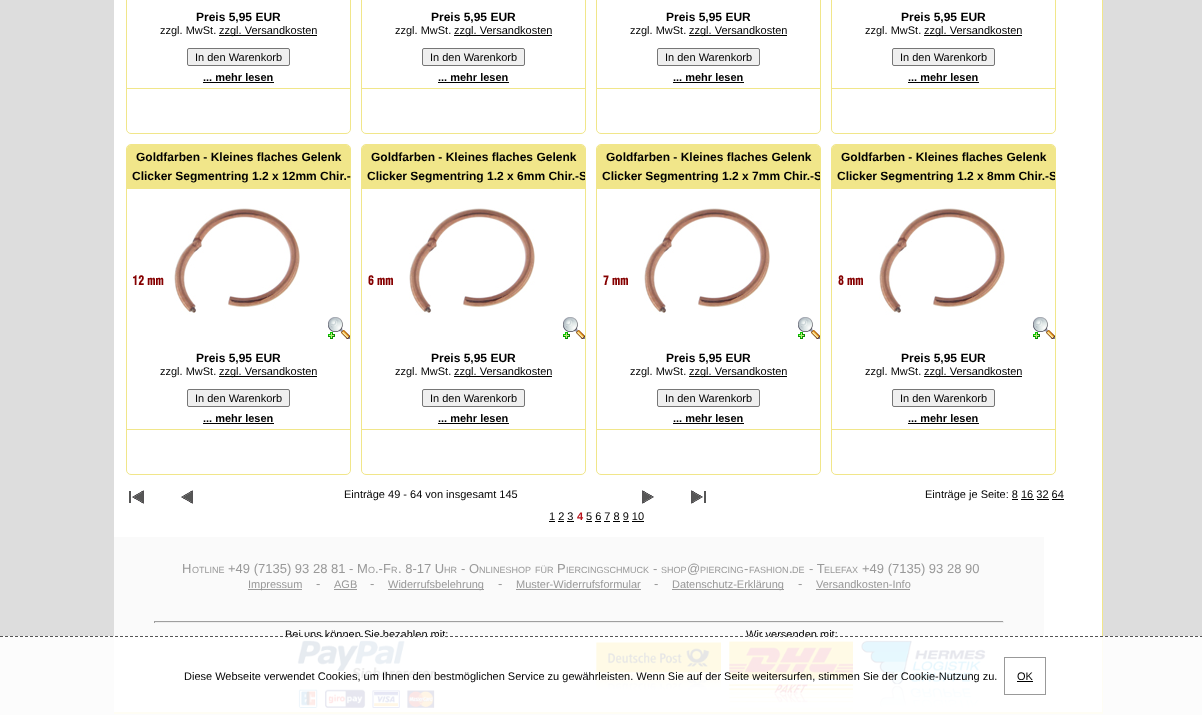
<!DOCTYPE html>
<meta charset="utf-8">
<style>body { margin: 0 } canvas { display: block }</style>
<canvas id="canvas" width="1202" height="715"></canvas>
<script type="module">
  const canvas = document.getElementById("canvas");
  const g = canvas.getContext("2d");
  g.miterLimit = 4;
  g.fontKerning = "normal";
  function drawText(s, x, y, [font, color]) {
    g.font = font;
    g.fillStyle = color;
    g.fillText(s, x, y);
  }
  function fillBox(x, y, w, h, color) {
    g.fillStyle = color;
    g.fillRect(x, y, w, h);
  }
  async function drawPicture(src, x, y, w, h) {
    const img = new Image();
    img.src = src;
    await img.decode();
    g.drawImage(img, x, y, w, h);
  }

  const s1 = ["bold 12px Liberation Sans", "#000000"];
  const s2 = ["11px Liberation Sans", "#000000"];
  const s3 = ["bold 11px Liberation Sans", "#000000"];
  const s4 = ["bold 11px Liberation Sans", "#B9121B"];
  const s5 = ["13px Liberation Sans", "#999999"];
  const s6 = ["9px Liberation Sans", "#999999"];
  const s7 = ["11px Liberation Sans", "#999999"];

  fillBox(0, 0, 1202, 715, "#DDDDDD");
  fillBox(114, 0, 988, 712, "#FFFFFF");
  fillBox(1102, 0, 1, 714, "#F1E68A");
  fillBox(114, 712, 989, 2, "#F1E68A");
  g.beginPath();
  g.roundRect(126.5, -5.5, 224, 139, 4.5);
  g.strokeStyle = "#F1E68A";
  g.stroke();
  drawText("Preis 5,95 EUR", 196, 21, s1);
  drawText("zzgl. MwSt.", 160, 34, s2);
  fillBox(219, 35, 98, 1, "#000000");
  drawText("zzgl. Versandkosten", 219, 34, s2);
  g.fillStyle = "#EFEFEF";
  g.beginPath();
  g.roundRect(187.5, 48.5, 102, 17, 1.5);
  g.fill();
  g.strokeStyle = "#767676";
  g.stroke();
  drawText("In den Warenkorb", 195, 61, s2);
  fillBox(127, 88, 223, 1, "#F1E68A");
  drawText("... mehr lesen", 203, 81, s3);
  fillBox(203, 82, 71, 1, "#000000");
  g.beginPath();
  g.roundRect(361.5, -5.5, 224, 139, 4.5);
  g.strokeStyle = "#F1E68A";
  g.stroke();
  drawText("Preis 5,95 EUR", 431, 21, s1);
  drawText("zzgl. MwSt.", 395, 34, s2);
  fillBox(454, 35, 98, 1, "#000000");
  drawText("zzgl. Versandkosten", 454, 34, s2);
  g.fillStyle = "#EFEFEF";
  g.beginPath();
  g.roundRect(422.5, 48.5, 102, 17, 1.5);
  g.fill();
  g.strokeStyle = "#767676";
  g.stroke();
  drawText("In den Warenkorb", 430, 61, s2);
  fillBox(362, 88, 223, 1, "#F1E68A");
  drawText("... mehr lesen", 438, 81, s3);
  fillBox(438, 82, 71, 1, "#000000");
  g.beginPath();
  g.roundRect(596.5, -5.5, 224, 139, 4.5);
  g.strokeStyle = "#F1E68A";
  g.stroke();
  drawText("Preis 5,95 EUR", 666, 21, s1);
  drawText("zzgl. MwSt.", 630, 34, s2);
  fillBox(689, 35, 98, 1, "#000000");
  drawText("zzgl. Versandkosten", 689, 34, s2);
  g.fillStyle = "#EFEFEF";
  g.beginPath();
  g.roundRect(657.5, 48.5, 102, 17, 1.5);
  g.fill();
  g.strokeStyle = "#767676";
  g.stroke();
  drawText("In den Warenkorb", 665, 61, s2);
  fillBox(597, 88, 223, 1, "#F1E68A");
  drawText("... mehr lesen", 673, 81, s3);
  fillBox(673, 82, 71, 1, "#000000");
  g.beginPath();
  g.roundRect(831.5, -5.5, 224, 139, 4.5);
  g.strokeStyle = "#F1E68A";
  g.stroke();
  drawText("Preis 5,95 EUR", 901, 21, s1);
  drawText("zzgl. MwSt.", 865, 34, s2);
  fillBox(924, 35, 98, 1, "#000000");
  drawText("zzgl. Versandkosten", 924, 34, s2);
  g.fillStyle = "#EFEFEF";
  g.beginPath();
  g.roundRect(892.5, 48.5, 102, 17, 1.5);
  g.fill();
  g.strokeStyle = "#767676";
  g.stroke();
  drawText("In den Warenkorb", 900, 61, s2);
  fillBox(832, 88, 223, 1, "#F1E68A");
  drawText("... mehr lesen", 908, 81, s3);
  fillBox(908, 82, 71, 1, "#000000");
  g.beginPath();
  g.roundRect(126.5, 144.5, 224, 330, 4.5);
  g.strokeStyle = "#F1E68A";
  g.stroke();
  g.fillStyle = "#F1E68A";
  g.beginPath();
  g.roundRect(127, 145, 223, 24, [4, 4, 0, 0]);
  g.fill();
  drawText("Goldfarben - Kleines flaches Gelenk", 136, 161, s1);
  fillBox(127, 169, 223, 20, "#F1E68A");
  drawText("Clicker Segmentring 1.2 x 12mm Chir.-", 132, 180, s1);
  await drawPicture("pic1.png", 133, 275, 31, 10);
  await drawPicture("pic2.png", 174, 208, 126, 107);
  await drawPicture("pic3.png", 328, 317, 22, 22);
  drawText("Preis 5,95 EUR", 196, 362, s1);
  drawText("zzgl. MwSt.", 160, 375, s2);
  fillBox(219, 376, 98, 1, "#000000");
  drawText("zzgl. Versandkosten", 219, 375, s2);
  g.fillStyle = "#EFEFEF";
  g.beginPath();
  g.roundRect(187.5, 389.5, 102, 17, 1.5);
  g.fill();
  g.strokeStyle = "#767676";
  g.stroke();
  drawText("In den Warenkorb", 195, 402, s2);
  fillBox(127, 429, 223, 1, "#F1E68A");
  drawText("... mehr lesen", 203, 422, s3);
  fillBox(203, 423, 71, 1, "#000000");
  g.beginPath();
  g.roundRect(361.5, 144.5, 224, 330, 4.5);
  g.strokeStyle = "#F1E68A";
  g.stroke();
  g.fillStyle = "#F1E68A";
  g.beginPath();
  g.roundRect(362, 145, 223, 24, [4, 4, 0, 0]);
  g.fill();
  drawText("Goldfarben - Kleines flaches Gelenk", 371, 161, s1);
  fillBox(362, 169, 223, 20, "#F1E68A");
  g.save();
  g.beginPath();
  g.roundRect(362, 145, 223, 329, 4);
  g.clip();
  drawText("Clicker Segmentring 1.2 x 6mm Chir.-S", 367, 180, s1);
  g.restore();
  await drawPicture("pic4.png", 368, 275, 25, 10);
  await drawPicture("pic2.png", 409, 208, 126, 107);
  await drawPicture("pic3.png", 563, 317, 22, 22);
  drawText("Preis 5,95 EUR", 431, 362, s1);
  drawText("zzgl. MwSt.", 395, 375, s2);
  fillBox(454, 376, 98, 1, "#000000");
  drawText("zzgl. Versandkosten", 454, 375, s2);
  g.fillStyle = "#EFEFEF";
  g.beginPath();
  g.roundRect(422.5, 389.5, 102, 17, 1.5);
  g.fill();
  g.strokeStyle = "#767676";
  g.stroke();
  drawText("In den Warenkorb", 430, 402, s2);
  fillBox(362, 429, 223, 1, "#F1E68A");
  drawText("... mehr lesen", 438, 422, s3);
  fillBox(438, 423, 71, 1, "#000000");
  g.beginPath();
  g.roundRect(596.5, 144.5, 224, 330, 4.5);
  g.strokeStyle = "#F1E68A";
  g.stroke();
  g.fillStyle = "#F1E68A";
  g.beginPath();
  g.roundRect(597, 145, 223, 24, [4, 4, 0, 0]);
  g.fill();
  drawText("Goldfarben - Kleines flaches Gelenk", 606, 161, s1);
  fillBox(597, 169, 223, 20, "#F1E68A");
  g.save();
  g.beginPath();
  g.roundRect(597, 145, 223, 329, 4);
  g.clip();
  drawText("Clicker Segmentring 1.2 x 7mm Chir.-S", 602, 180, s1);
  g.restore();
  await drawPicture("pic5.png", 603, 275, 25, 10);
  await drawPicture("pic2.png", 644, 208, 126, 107);
  await drawPicture("pic3.png", 798, 317, 22, 22);
  drawText("Preis 5,95 EUR", 666, 362, s1);
  drawText("zzgl. MwSt.", 630, 375, s2);
  fillBox(689, 376, 98, 1, "#000000");
  drawText("zzgl. Versandkosten", 689, 375, s2);
  g.fillStyle = "#EFEFEF";
  g.beginPath();
  g.roundRect(657.5, 389.5, 102, 17, 1.5);
  g.fill();
  g.strokeStyle = "#767676";
  g.stroke();
  drawText("In den Warenkorb", 665, 402, s2);
  fillBox(597, 429, 223, 1, "#F1E68A");
  drawText("... mehr lesen", 673, 422, s3);
  fillBox(673, 423, 71, 1, "#000000");
  g.beginPath();
  g.roundRect(831.5, 144.5, 224, 330, 4.5);
  g.strokeStyle = "#F1E68A";
  g.stroke();
  g.fillStyle = "#F1E68A";
  g.beginPath();
  g.roundRect(832, 145, 223, 24, [4, 4, 0, 0]);
  g.fill();
  drawText("Goldfarben - Kleines flaches Gelenk", 841, 161, s1);
  fillBox(832, 169, 223, 20, "#F1E68A");
  g.save();
  g.beginPath();
  g.roundRect(832, 145, 223, 329, 4);
  g.clip();
  drawText("Clicker Segmentring 1.2 x 8mm Chir.-S", 837, 180, s1);
  g.restore();
  await drawPicture("pic6.png", 838, 275, 25, 10);
  await drawPicture("pic2.png", 879, 208, 126, 107);
  await drawPicture("pic3.png", 1033, 317, 22, 22);
  drawText("Preis 5,95 EUR", 901, 362, s1);
  drawText("zzgl. MwSt.", 865, 375, s2);
  fillBox(924, 376, 98, 1, "#000000");
  drawText("zzgl. Versandkosten", 924, 375, s2);
  g.fillStyle = "#EFEFEF";
  g.beginPath();
  g.roundRect(892.5, 389.5, 102, 17, 1.5);
  g.fill();
  g.strokeStyle = "#767676";
  g.stroke();
  drawText("In den Warenkorb", 900, 402, s2);
  fillBox(832, 429, 223, 1, "#F1E68A");
  drawText("... mehr lesen", 908, 422, s3);
  fillBox(908, 423, 71, 1, "#000000");
  await drawPicture("pic7.png", 129, 490, 15, 14);
  await drawPicture("pic8.png", 181, 490, 12, 14);
  drawText("Einträge 49 - 64 von insgesamt 145", 344, 498, s2);
  await drawPicture("pic9.png", 642, 490, 12, 14);
  await drawPicture("pic10.png", 691, 490, 15, 14);
  drawText("Einträge je Seite: 8 16 32 64", 925, 498, s2);
  fillBox(1012, 499, 6, 1, "#000000");
  fillBox(1021, 499, 13, 1, "#000000");
  fillBox(1037, 499, 12, 1, "#000000");
  fillBox(1052, 499, 12, 1, "#000000");
  drawText("1 2 3", 549, 520, s2);
  fillBox(549, 521, 6, 1, "#000000");
  drawText("4", 577, 520, s4);
  drawText("5 6 7 8 9 10", 586, 520, s2);
  fillBox(586, 521, 6, 1, "#000000");
  fillBox(558, 521, 6, 1, "#000000");
  fillBox(567, 521, 7, 1, "#000000");
  fillBox(595, 521, 6, 1, "#000000");
  fillBox(604, 521, 6, 1, "#000000");
  fillBox(613, 521, 7, 1, "#000000");
  fillBox(623, 521, 6, 1, "#000000");
  fillBox(632, 521, 12, 1, "#000000");
  fillBox(114, 537, 930, 175, "#FAFAFA");
  drawText("H", 182, 573, s5);
  drawText("OTLINE", 192, 573, s6);
  drawText("+49 (7135) 93 28 81 - M", 228, 573, s5);
  drawText("O", 368, 573, s6);
  drawText(".-F", 375, 573, s5);
  drawText("R", 391, 573, s6);
  drawText(". 8-17 U", 398, 573, s5);
  drawText("HR", 444, 573, s6);
  drawText("- O", 461, 573, s5);
  drawText("NLINESHOP", 479, 573, s6);
  drawText("FÜR", 535, 573, s6);
  drawText("P", 557, 573, s5);
  drawText("IERCINGSCHMUCK", 566, 573, s6);
  drawText("-", 653, 573, s5);
  drawText("SHOP", 661, 573, s6);
  drawText("@", 687, 573, s5);
  drawText("PIERCING", 700, 573, s6);
  drawText("-", 744, 573, s5);
  drawText("FASHION", 749, 573, s6);
  drawText("DE", 792, 573, s6);
  drawText("- T", 809, 573, s5);
  drawText("ELEFAX", 824, 573, s6);
  drawText("+49 (7135) 93 28 90", 862, 573, s5);
  drawText(".", 789, 573, s5);
  fillBox(248, 589, 54, 1, "#999999");
  drawText("Impressum", 248, 588, s7);
  drawText("-", 316, 588, s5);
  drawText("AGB", 334, 588, s7);
  fillBox(334, 589, 23, 1, "#999999");
  drawText("-", 370, 588, s5);
  fillBox(388, 589, 96, 1, "#999999");
  drawText("Widerrufsbelehrung", 388, 588, s7);
  drawText("-", 498, 588, s5);
  drawText("Muster-Widerrufsformular", 516, 588, s7);
  fillBox(516, 589, 125, 1, "#999999");
  drawText("-", 654, 588, s5);
  fillBox(672, 589, 112, 1, "#999999");
  drawText("Datenschutz-Erklärung", 672, 588, s7);
  drawText("-", 798, 588, s5);
  drawText("Versandkosten-Info", 816, 588, s7);
  fillBox(816, 589, 94, 1, "#999999");
  fillBox(154, 621, 850, 1, "#9F9F9F");
  fillBox(1003, 621, 1, 2, "#EEEEEE");
  fillBox(154, 622, 850, 1, "#EEEEEE");
  fillBox(154, 621, 1, 2, "#9F9F9F");
  drawText("Bei uns können Sie bezahlen mit:", 285, 638, s2);
  await drawPicture("pic11.png", 297, 640, 140, 70);
  drawText("Wir versenden mit:", 746, 638, s2);
  await drawPicture("pic12.png", 594, 640, 130, 70);
  await drawPicture("pic13.png", 727, 640, 129, 70);
  await drawPicture("pic14.png", 860, 640, 129, 70);
  fillBox(0, 636, 1202, 79, "rgba(255, 255, 255, 0.9)");
  g.beginPath();
  g.moveTo(0, 636.5);
  g.lineTo(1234, 636.5);
  g.strokeStyle = "#555555";
  g.setLineDash([3, 2]);
  g.stroke();
  drawText("Diese Webseite verwendet Cookies, um Ihnen den bestmöglichen Service zu gewährleisten. Wenn Sie auf der Seite weitersurfen, stimmen Sie der Cookie-Nutzung zu.", 184, 680, s2);
  g.strokeStyle = "#999999";
  g.setLineDash([]);
  g.strokeRect(1004.5, 657.5, 41, 37);
  drawText("OK", 1017, 680, s2);
  fillBox(1017, 681, 16, 1, "#000000");
</script>
